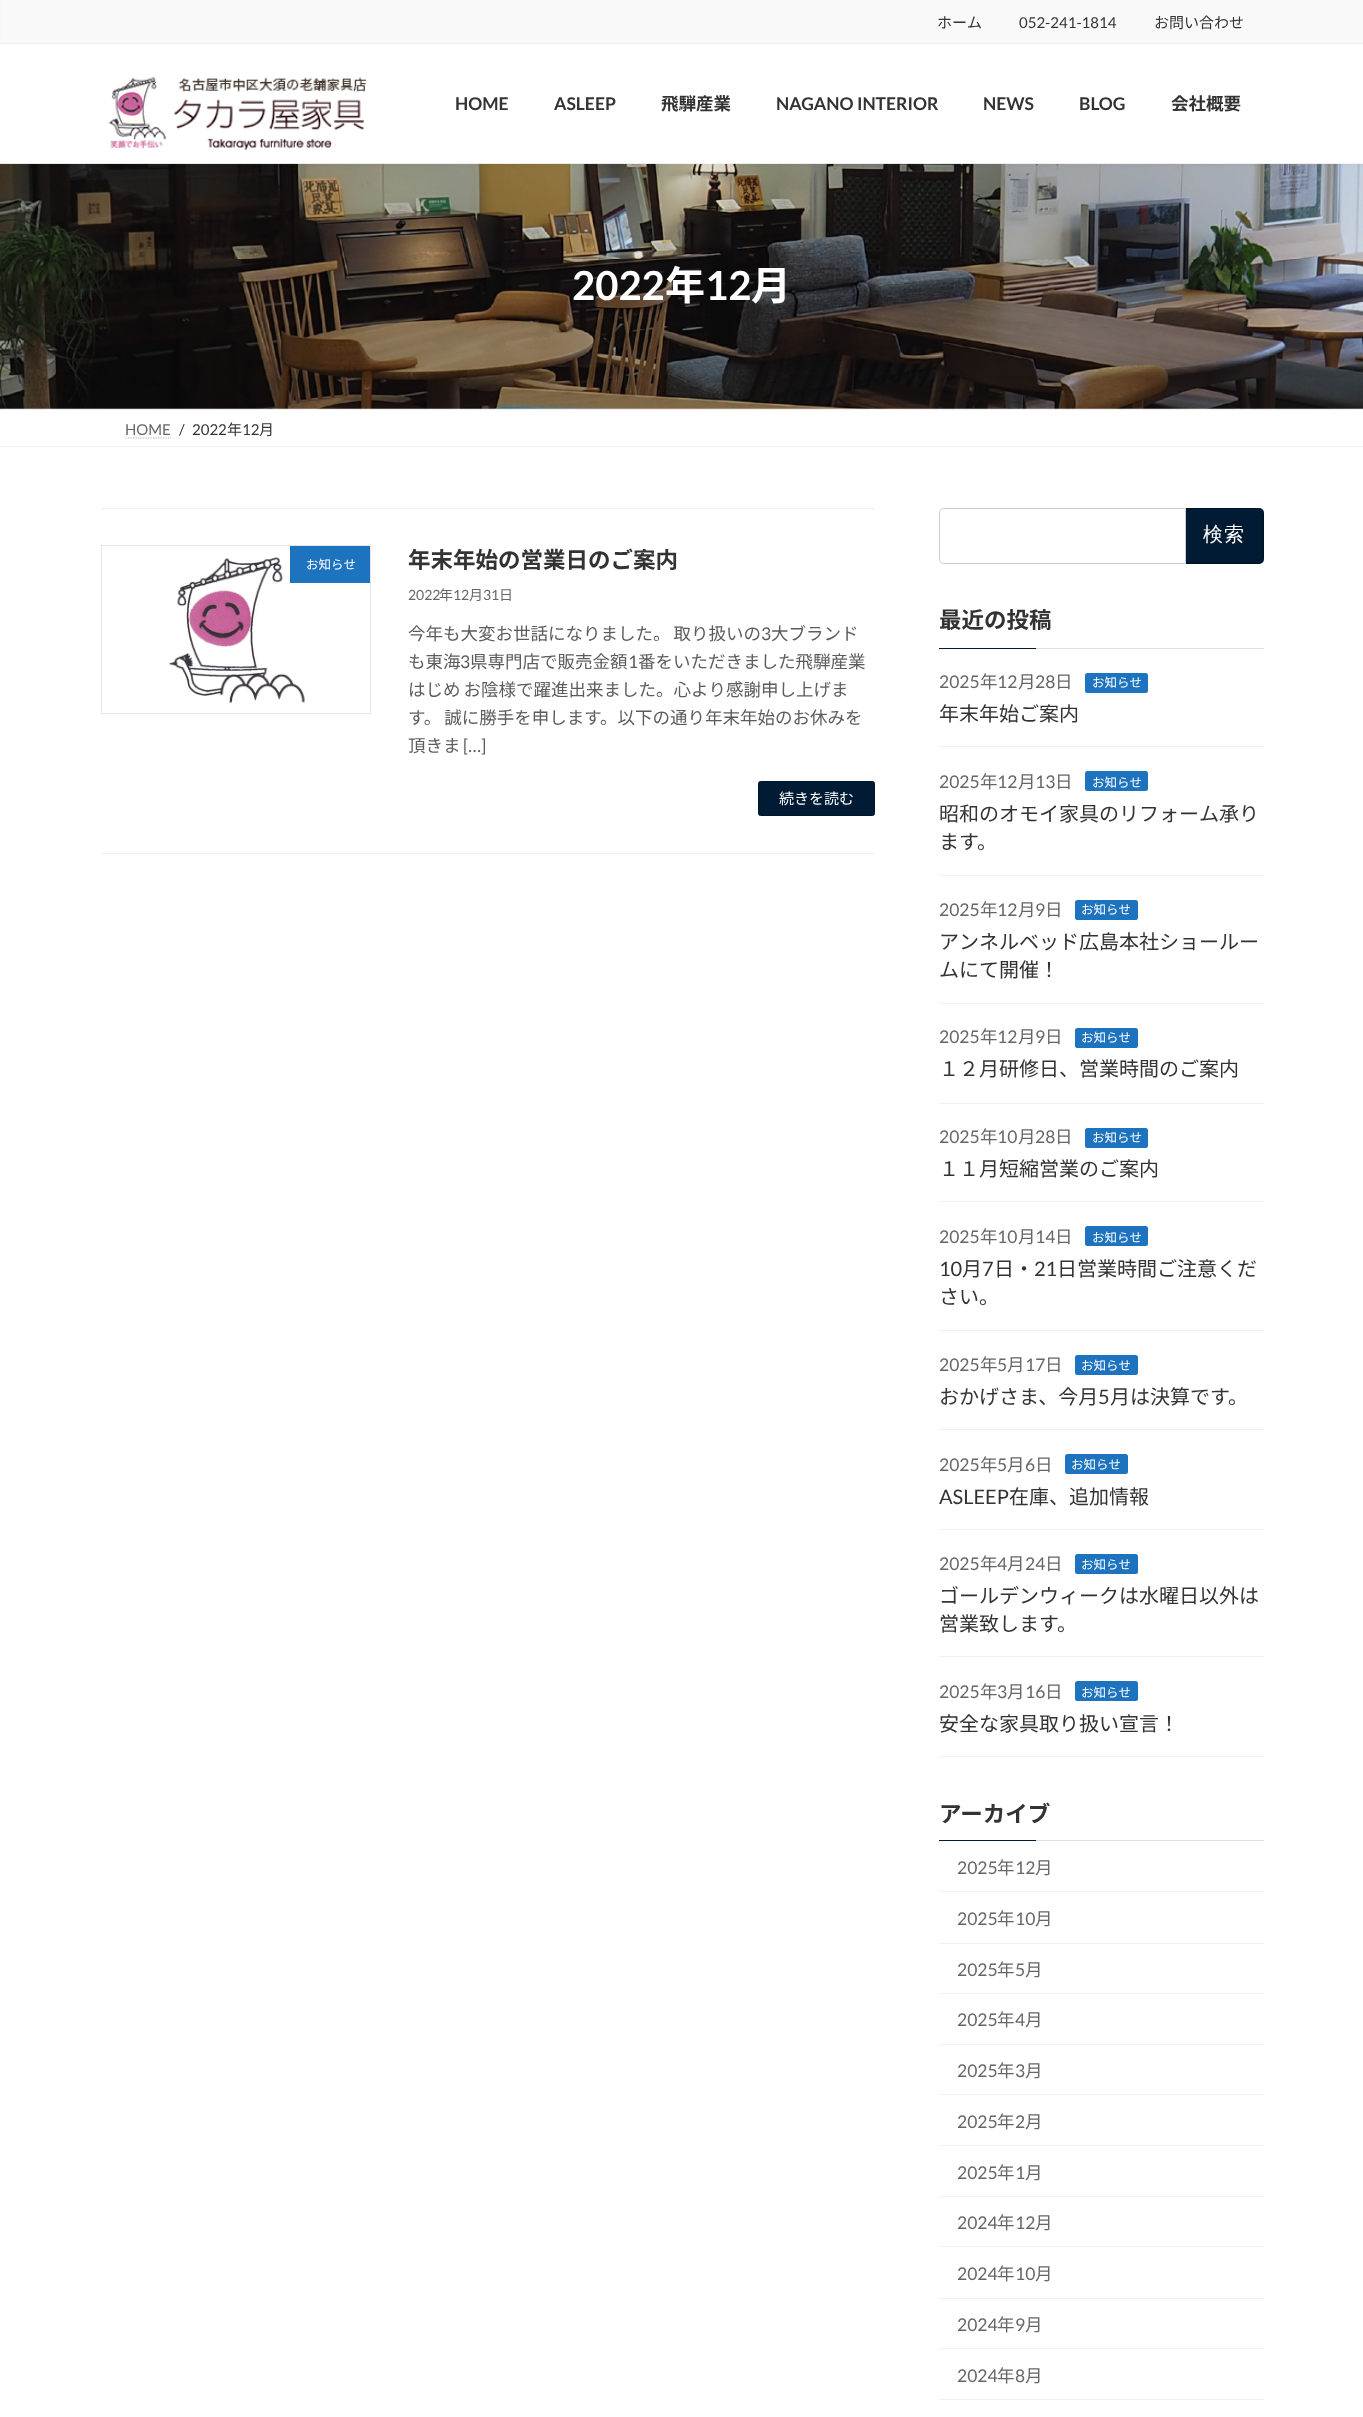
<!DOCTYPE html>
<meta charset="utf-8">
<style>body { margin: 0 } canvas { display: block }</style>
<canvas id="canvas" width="1363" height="2417"></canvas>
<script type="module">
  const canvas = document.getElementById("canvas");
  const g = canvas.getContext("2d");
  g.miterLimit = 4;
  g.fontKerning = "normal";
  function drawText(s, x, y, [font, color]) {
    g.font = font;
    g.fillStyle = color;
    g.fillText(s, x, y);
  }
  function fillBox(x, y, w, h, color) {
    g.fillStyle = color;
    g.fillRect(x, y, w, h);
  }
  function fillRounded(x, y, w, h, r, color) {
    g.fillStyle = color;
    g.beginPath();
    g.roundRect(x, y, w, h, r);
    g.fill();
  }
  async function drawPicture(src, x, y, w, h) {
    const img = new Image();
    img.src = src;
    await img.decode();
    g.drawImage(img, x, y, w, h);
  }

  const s1 = ["15px Noto Sans JP", "#333333"];
  const s2 = ["15px Lato", "#333333"];
  const s3 = ["bold 17.5px Lato", "#333333"];
  const s4 = ["bold 17.5px Noto Sans JP", "#333333"];
  const s5 = ["bold 40px Lato", "#FFFFFF"];
  const s6 = ["bold 40px Noto Sans JP", "#FFFFFF"];
  const s7 = ["15px Lato", "#666666"];
  const s8 = ["12.5px Noto Sans JP", "#FFFFFF"];
  const s9 = ["bold 22.5px Noto Sans JP", "#333333"];
  const s10 = ["14px Lato", "#666666"];
  const s11 = ["14px Noto Sans JP", "#666666"];
  const s12 = ["17.5px Noto Sans JP", "#5C5C5C"];
  const s13 = ["17.5px Lato", "#5C5C5C"];
  const s14 = ["15px Noto Sans JP", "#FFFFFF"];
  const s15 = ["500 20px WenQuanYi Zen Hei", "#FFFFFF"];
  const s16 = ["17.5px Lato", "#666666"];
  const s17 = ["17.5px Noto Sans JP", "#666666"];
  const s18 = ["20px Noto Sans JP", "#333333"];
  const s19 = ["20px Lato", "#333333"];

  fillBox(0, 0, 1363, 2417, "#FFFFFF");
  await drawPicture("pic2.png", 0, 163, 1363, 246);
  g.fillStyle = "rgba(0, 0, 0, 0.05)";
  g.filter = "blur(2px)";
  g.beginPath();
  g.rect(0, -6, 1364, 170);
  g.fill();
  g.filter = "none";
  fillBox(0, 44, 1363, 119, "#FFFFFF");
  fillBox(1, 0, 1362, 43, "#F9F9F9");
  fillBox(0, 43, 1363, 1, "#EFEFEF");
  drawText("ホーム", 937, 28, s1);
  drawText("052-241-1814", 1019, 28, s2);
  drawText("お問い合わせ", 1154, 28, s1);
  await drawPicture("pic1.png", 101, 77, 265, 73);
  drawText("HOME", 455, 110, s3);
  drawText("ASLEEP", 554, 110, s3);
  drawText("飛騨産業", 661, 110, s4);
  drawText("NAGANO INTERIOR", 776, 110, s3);
  drawText("NEWS", 983, 110, s3);
  drawText("BLOG", 1079, 110, s3);
  drawText("会社概要", 1171, 110, s4);
  drawText("2022", 572, 300, s5);
  drawText("年", 665, 300, s6);
  drawText("12", 705, 300, s5);
  drawText("月", 751, 300, s6);
  fillBox(0, 409, 1363, 1, "#F0F0F0");
  fillBox(0, 446, 1363, 1, "#F0F0F0");
  drawText("HOME", 125, 435, s7);
  g.beginPath();
  g.moveTo(125.5, 438);
  g.lineTo(171, 438);
  g.strokeStyle = "#B3B3B3";
  g.lineWidth = 1.2;
  g.setLineDash([1.25, 1.25]);
  g.stroke();
  drawText("/", 179, 435, s2);
  drawText("2022", 192, 435, s2);
  drawText("年", 227, 435, s1);
  drawText("12", 242, 435, s2);
  drawText("月", 259, 435, s1);
  fillBox(101, 508, 774, 1, "#F0F0F0");
  fillBox(101, 853, 774, 1, "#F0F0F0");
  await drawPicture("pic3.png", 169, 557, 136, 146);
  g.strokeStyle = "#E5E5E5";
  g.lineWidth = 1;
  g.setLineDash([]);
  g.strokeRect(101.5, 545.5, 269, 168);
  fillBox(290, 546, 80, 37, "#1E73BE");
  drawText("お知らせ", 306, 569, s8);
  drawText("年末年始の営業日のご案内", 408, 568, s9);
  drawText("2022", 408, 600, s10);
  drawText("年", 439, 600, s11);
  drawText("12", 453, 600, s10);
  drawText("月", 469, 600, s11);
  drawText("31", 483, 600, s10);
  drawText("日", 499, 600, s11);
  g.wordSpacing = "-1px";
  drawText("今年も大変お世話になりました。 取り扱いの", 408, 640, s12);
  g.wordSpacing = "0px";
  drawText("3", 761, 640, s13);
  drawText("大ブランド", 771, 640, s12);
  drawText("も東海", 408, 668, s12);
  drawText("3", 460, 668, s13);
  drawText("県専門店で販売金額", 470, 668, s12);
  drawText("1", 628, 668, s13);
  drawText("番をいただきました飛騨産業", 638, 668, s12);
  g.wordSpacing = "-1px";
  drawText("はじめ お陰様で躍進出来ました。心より感謝申し上げま", 408, 696, s12);
  drawText("す。 誠に勝手を申します。以下の通り年末年始のお休みを", 408, 724, s12);
  g.wordSpacing = "0px";
  drawText("頂きま", 408, 752, s12);
  drawText("[…]", 463, 752, s13);
  g.fillStyle = "#001B33";
  g.beginPath();
  g.roundRect(758.5, 781.5, 116, 34, 2);
  g.fill();
  g.strokeStyle = "#001629";
  g.stroke();
  drawText("続きを読む", 779, 804, s14);
  g.beginPath();
  g.roundRect(939.5, 508.5, 246, 55, [4.5, 0, 0, 4.5]);
  g.strokeStyle = "#CCCCCC";
  g.stroke();
  g.fillStyle = "#001B33";
  g.beginPath();
  g.roundRect(1186, 508, 78, 56, [0, 5, 5, 0]);
  g.fill();
  g.fillStyle = "rgba(0, 0, 0, 0.2)";
  g.beginPath();
  g.moveTo(1186, 508);
  g.lineTo(1259, 508);
  g.bezierCurveTo(1262, 508, 1264, 510, 1264, 512);
  g.lineTo(1264, 559);
  g.bezierCurveTo(1264, 562, 1262, 564, 1259, 564);
  g.lineTo(1186, 564);
  g.closePath();
  g.moveTo(1186, 509);
  g.lineTo(1259, 509);
  g.bezierCurveTo(1261, 509, 1262, 510, 1262, 512);
  g.lineTo(1262, 559);
  g.bezierCurveTo(1262, 561, 1261, 562, 1259, 562);
  g.lineTo(1186, 562);
  g.closePath();
  g.fill("evenodd");
  g.letterSpacing = "1px";
  drawText("検索", 1203, 541, s15);
  fillBox(1036, 648, 228, 1, "#E0E0E0");
  g.letterSpacing = "0px";
  drawText("最近の投稿", 939, 628, s9);
  fillBox(939, 648, 97, 1, "#001B33");
  fillBox(939, 746, 325, 1, "#F0F0F0");
  drawText("2025", 939, 688, s16);
  drawText("年", 980, 688, s17);
  drawText("12", 997, 688, s16);
  drawText("月", 1018, 688, s17);
  drawText("28", 1035, 688, s16);
  drawText("日", 1055, 688, s17);
  fillRounded(1085, 673, 63, 20, 2.5, "#1E73BE");
  drawText("お知らせ", 1092, 687, s8);
  drawText("年末年始ご案内", 939, 721, s18);
  fillBox(939, 875, 325, 1, "#F0F0F0");
  drawText("2025", 939, 788, s16);
  drawText("年", 980, 788, s17);
  drawText("12", 997, 788, s16);
  drawText("月", 1018, 788, s17);
  drawText("13", 1035, 788, s16);
  drawText("日", 1055, 788, s17);
  fillRounded(1085, 771, 63, 20, 2.5, "#1E73BE");
  drawText("お知らせ", 1092, 787, s8);
  drawText("昭和のオモイ家具のリフォーム承り", 939, 821, s18);
  drawText("ます。", 939, 849, s18);
  fillBox(939, 1003, 325, 1, "#F0F0F0");
  drawText("2025", 939, 916, s16);
  drawText("年", 980, 916, s17);
  drawText("12", 997, 916, s16);
  drawText("月", 1018, 916, s17);
  drawText("9", 1035, 916, s16);
  drawText("日", 1045, 916, s17);
  fillRounded(1075, 900, 63, 20, 2.5, "#1E73BE");
  drawText("お知らせ", 1081, 914, s8);
  drawText("アンネルベッド広島本社ショールー", 939, 949, s18);
  drawText("ムにて開催！", 939, 977, s18);
  fillBox(939, 1103, 325, 1, "#F0F0F0");
  drawText("2025", 939, 1043, s16);
  drawText("年", 980, 1043, s17);
  drawText("12", 997, 1043, s16);
  drawText("月", 1018, 1043, s17);
  drawText("9", 1035, 1043, s16);
  drawText("日", 1045, 1043, s17);
  fillRounded(1075, 1028, 63, 20, 2.5, "#1E73BE");
  drawText("お知らせ", 1081, 1042, s8);
  drawText("１２月研修日、営業時間のご案内", 939, 1076, s18);
  fillBox(939, 1201, 325, 1, "#F0F0F0");
  drawText("2025", 939, 1143, s16);
  drawText("年", 980, 1143, s17);
  drawText("10", 997, 1143, s16);
  drawText("月", 1018, 1143, s17);
  drawText("28", 1035, 1143, s16);
  drawText("日", 1055, 1143, s17);
  fillRounded(1085, 1128, 63, 20, 2.5, "#1E73BE");
  drawText("お知らせ", 1092, 1142, s8);
  drawText("１１月短縮営業のご案内", 939, 1176, s18);
  fillBox(939, 1330, 325, 1, "#F0F0F0");
  drawText("2025", 939, 1243, s16);
  drawText("年", 980, 1243, s17);
  drawText("10", 997, 1243, s16);
  drawText("月", 1018, 1243, s17);
  drawText("14", 1035, 1243, s16);
  drawText("日", 1055, 1243, s17);
  fillRounded(1085, 1226, 63, 20, 2.5, "#1E73BE");
  drawText("お知らせ", 1092, 1242, s8);
  drawText("10", 939, 1276, s19);
  drawText("月", 962, 1276, s18);
  drawText("7", 982, 1276, s19);
  drawText("日・", 994, 1276, s18);
  drawText("21", 1034, 1276, s19);
  drawText("日営業時間ご注意くだ", 1057, 1276, s18);
  drawText("さい。", 939, 1304, s18);
  fillBox(939, 1429, 325, 1, "#F0F0F0");
  drawText("2025", 939, 1371, s16);
  drawText("年", 980, 1371, s17);
  drawText("5", 997, 1371, s16);
  drawText("月", 1007, 1371, s17);
  drawText("17", 1025, 1371, s16);
  drawText("日", 1045, 1371, s17);
  fillRounded(1075, 1355, 63, 20, 2.5, "#1E73BE");
  drawText("お知らせ", 1081, 1370, s8);
  drawText("おかげさま、今月", 939, 1404, s18);
  drawText("5", 1098, 1404, s19);
  drawText("月は決算です。", 1110, 1404, s18);
  fillBox(939, 1529, 325, 1, "#F0F0F0");
  drawText("2025", 939, 1471, s16);
  drawText("年", 980, 1471, s17);
  drawText("5", 997, 1471, s16);
  drawText("月", 1007, 1471, s17);
  drawText("6", 1025, 1471, s16);
  drawText("日", 1035, 1471, s17);
  fillRounded(1065, 1454, 63, 20, 2.5, "#1E73BE");
  drawText("お知らせ", 1071, 1469, s8);
  drawText("ASLEEP", 939, 1504, s19);
  drawText("在庫、追加情報", 1009, 1504, s18);
  fillBox(939, 1656, 325, 1, "#F0F0F0");
  drawText("2025", 939, 1570, s16);
  drawText("年", 980, 1570, s17);
  drawText("4", 997, 1570, s16);
  drawText("月", 1007, 1570, s17);
  drawText("24", 1025, 1570, s16);
  drawText("日", 1045, 1570, s17);
  fillRounded(1075, 1554, 63, 20, 2.5, "#1E73BE");
  drawText("お知らせ", 1081, 1569, s8);
  drawText("ゴールデンウィークは水曜日以外は", 939, 1603, s18);
  drawText("営業致します。", 939, 1631, s18);
  fillBox(939, 1756, 325, 1, "#F0F0F0");
  drawText("2025", 939, 1698, s16);
  drawText("年", 980, 1698, s17);
  drawText("3", 997, 1698, s16);
  drawText("月", 1007, 1698, s17);
  drawText("16", 1025, 1698, s16);
  drawText("日", 1045, 1698, s17);
  fillRounded(1075, 1681, 63, 20, 2.5, "#1E73BE");
  drawText("お知らせ", 1081, 1697, s8);
  drawText("安全な家具取り扱い宣言！", 939, 1731, s18);
  fillBox(1036, 1840, 228, 1, "#E0E0E0");
  drawText("アーカイブ", 939, 1822, s9);
  fillBox(939, 1840, 97, 1, "#001B33");
  fillBox(939, 1891, 325, 1, "#F0F0F0");
  drawText("2025", 957, 1874, s16);
  drawText("年", 997, 1874, s17);
  drawText("12", 1015, 1874, s16);
  drawText("月", 1035, 1874, s17);
  fillBox(939, 1943, 325, 1, "#F0F0F0");
  drawText("2025", 957, 1925, s16);
  drawText("年", 997, 1925, s17);
  drawText("10", 1015, 1925, s16);
  drawText("月", 1035, 1925, s17);
  fillBox(939, 1993, 325, 1, "#F0F0F0");
  drawText("2025", 957, 1976, s16);
  drawText("年", 997, 1976, s17);
  drawText("5", 1015, 1976, s16);
  drawText("月", 1025, 1976, s17);
  fillBox(939, 2044, 325, 1, "#F0F0F0");
  drawText("2025", 957, 2026, s16);
  drawText("年", 997, 2026, s17);
  drawText("4", 1015, 2026, s16);
  drawText("月", 1025, 2026, s17);
  fillBox(939, 2094, 325, 1, "#F0F0F0");
  drawText("2025", 957, 2077, s16);
  drawText("年", 997, 2077, s17);
  drawText("3", 1015, 2077, s16);
  drawText("月", 1025, 2077, s17);
  fillBox(939, 2145, 325, 1, "#F0F0F0");
  drawText("2025", 957, 2128, s16);
  drawText("年", 997, 2128, s17);
  drawText("2", 1015, 2128, s16);
  drawText("月", 1025, 2128, s17);
  fillBox(939, 2196, 325, 1, "#F0F0F0");
  drawText("2025", 957, 2179, s16);
  drawText("年", 997, 2179, s17);
  drawText("1", 1015, 2179, s16);
  drawText("月", 1025, 2179, s17);
  fillBox(939, 2246, 325, 1, "#F0F0F0");
  drawText("2024", 957, 2229, s16);
  drawText("年", 997, 2229, s17);
  drawText("12", 1015, 2229, s16);
  drawText("月", 1035, 2229, s17);
  fillBox(939, 2298, 325, 1, "#F0F0F0");
  drawText("2024", 957, 2280, s16);
  drawText("年", 997, 2280, s17);
  drawText("10", 1015, 2280, s16);
  drawText("月", 1035, 2280, s17);
  fillBox(939, 2348, 325, 1, "#F0F0F0");
  drawText("2024", 957, 2331, s16);
  drawText("年", 997, 2331, s17);
  drawText("9", 1015, 2331, s16);
  drawText("月", 1025, 2331, s17);
  fillBox(939, 2399, 325, 1, "#F0F0F0");
  drawText("2024", 957, 2382, s16);
  drawText("年", 997, 2382, s17);
  drawText("8", 1015, 2382, s16);
  drawText("月", 1025, 2382, s17);
</script>
